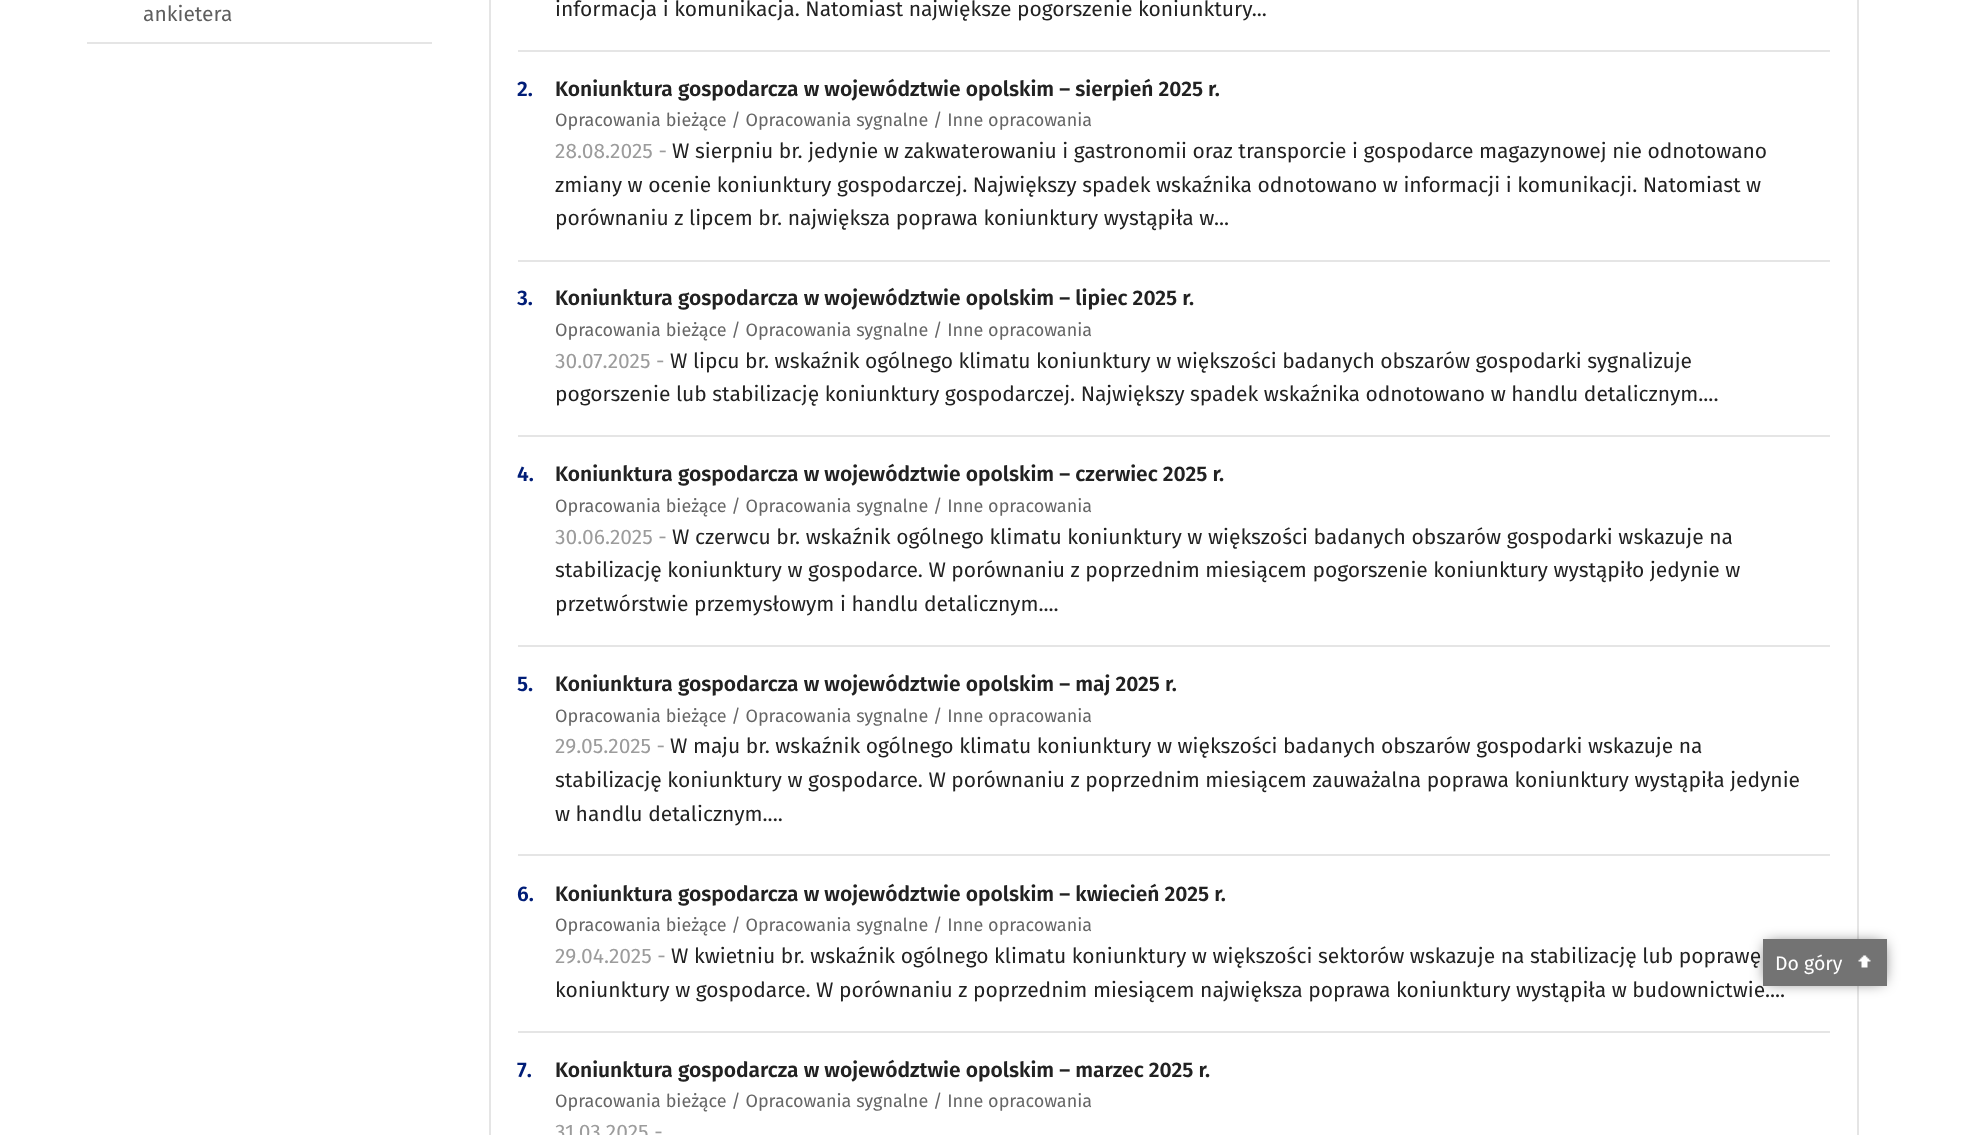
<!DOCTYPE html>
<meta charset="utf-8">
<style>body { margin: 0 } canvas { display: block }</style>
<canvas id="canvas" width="1972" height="1135"></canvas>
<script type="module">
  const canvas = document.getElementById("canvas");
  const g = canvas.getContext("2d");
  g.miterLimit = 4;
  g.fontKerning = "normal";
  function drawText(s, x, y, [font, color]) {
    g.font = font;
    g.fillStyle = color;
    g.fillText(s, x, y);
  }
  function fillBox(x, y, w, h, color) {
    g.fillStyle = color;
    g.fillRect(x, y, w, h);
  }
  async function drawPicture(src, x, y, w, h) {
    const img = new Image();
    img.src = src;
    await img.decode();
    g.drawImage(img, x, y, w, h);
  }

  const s1 = ["21px Fira Sans", "#5E5E5E"];
  const s2 = ["21px Fira Sans", "#222222"];
  const s3 = ["600 21px Fira Sans", "#001D77"];
  const s4 = ["600 21px Fira Sans", "#222222"];
  const s5 = ["18px Fira Sans", "#666666"];
  const s6 = ["21px Fira Sans", "#9C9C9C"];
  const s7 = ["19.5px Fira Sans", "#FFFFFF"];

  fillBox(0, 0, 1972, 1135, "#FFFFFF");
  fillBox(87, 42, 345, 2, "#E5E5E5");
  drawText("ankietera", 143, 21, s1);
  g.strokeStyle = "#E5E5E5";
  g.lineWidth = 2;
  g.strokeRect(490, -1, 1368, 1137);
  fillBox(518, 50, 1312, 2, "#E5E5E5");
  drawText("informacja i komunikacja. Natomiast największe pogorszenie koniunktury...", 555, 16, s2);
  fillBox(518, 260, 1312, 2, "#E5E5E5");
  drawText("2.", 517, 96, s3);
  drawText("Koniunktura gospodarcza w województwie opolskim – sierpień 2025 r.", 555, 96, s4);
  drawText("Opracowania bieżące / Opracowania sygnalne / Inne opracowania", 555, 126, s5);
  drawText("28.08.2025 -", 555, 158, s6);
  drawText("W sierpniu br. jedynie w zakwaterowaniu i gastronomii oraz transporcie i gospodarce magazynowej nie odnotowano", 672, 158, s2);
  drawText("zmiany w ocenie koniunktury gospodarczej. Największy spadek wskaźnika odnotowano w informacji i komunikacji. Natomiast w", 555, 192, s2);
  drawText("porównaniu z lipcem br. największa poprawa koniunktury wystąpiła w...", 555, 225, s2);
  fillBox(518, 435, 1312, 2, "#E5E5E5");
  drawText("3.", 517, 305, s3);
  drawText("Koniunktura gospodarcza w województwie opolskim – lipiec 2025 r.", 555, 305, s4);
  drawText("Opracowania bieżące / Opracowania sygnalne / Inne opracowania", 555, 336, s5);
  drawText("30.07.2025 -", 555, 368, s6);
  drawText("W lipcu br. wskaźnik ogólnego klimatu koniunktury w większości badanych obszarów gospodarki sygnalizuje", 670, 368, s2);
  drawText("pogorszenie lub stabilizację koniunktury gospodarczej. Największy spadek wskaźnika odnotowano w handlu detalicznym....", 555, 401, s2);
  fillBox(518, 645, 1312, 2, "#E5E5E5");
  drawText("4.", 517, 481, s3);
  drawText("Koniunktura gospodarcza w województwie opolskim – czerwiec 2025 r.", 555, 481, s4);
  drawText("Opracowania bieżące / Opracowania sygnalne / Inne opracowania", 555, 512, s5);
  drawText("30.06.2025 -", 555, 544, s6);
  drawText("W czerwcu br. wskaźnik ogólnego klimatu koniunktury w większości badanych obszarów gospodarki wskazuje na", 672, 544, s2);
  drawText("stabilizację koniunktury w gospodarce. W porównaniu z poprzednim miesiącem pogorszenie koniunktury wystąpiło jedynie w", 555, 577, s2);
  drawText("przetwórstwie przemysłowym i handlu detalicznym....", 555, 611, s2);
  fillBox(518, 854, 1312, 2, "#E5E5E5");
  drawText("5.", 517, 691, s3);
  drawText("Koniunktura gospodarcza w województwie opolskim – maj 2025 r.", 555, 691, s4);
  drawText("Opracowania bieżące / Opracowania sygnalne / Inne opracowania", 555, 722, s5);
  drawText("29.05.2025 -", 555, 753, s6);
  drawText("W maju br. wskaźnik ogólnego klimatu koniunktury w większości badanych obszarów gospodarki wskazuje na", 670, 753, s2);
  drawText("stabilizację koniunktury w gospodarce. W porównaniu z poprzednim miesiącem zauważalna poprawa koniunktury wystąpiła jedynie", 555, 787, s2);
  drawText("w handlu detalicznym....", 555, 821, s2);
  fillBox(518, 1031, 1312, 2, "#E5E5E5");
  drawText("6.", 517, 901, s3);
  drawText("Koniunktura gospodarcza w województwie opolskim – kwiecień 2025 r.", 555, 901, s4);
  drawText("Opracowania bieżące / Opracowania sygnalne / Inne opracowania", 555, 931, s5);
  drawText("29.04.2025 -", 555, 963, s6);
  drawText("W kwietniu br. wskaźnik ogólnego klimatu koniunktury w większości sektorów wskazuje na stabilizację lub poprawę", 671, 963, s2);
  drawText("koniunktury w gospodarce. W porównaniu z poprzednim miesiącem największa poprawa koniunktury wystąpiła w budownictwie....", 555, 997, s2);
  drawText("7.", 517, 1077, s3);
  drawText("Koniunktura gospodarcza w województwie opolskim – marzec 2025 r.", 555, 1077, s4);
  drawText("Opracowania bieżące / Opracowania sygnalne / Inne opracowania", 555, 1107, s5);
  drawText("31.03.2025 -", 555, 1139, s6);
  g.fillStyle = "rgba(0, 0, 0, 0.7)";
  g.filter = "blur(7.5px)";
  g.beginPath();
  g.rect(1767, 944, 116, 37);
  g.fill();
  g.filter = "none";
  fillBox(1763, 939, 124, 47, "#737373");
  drawText("Do góry", 1775, 970, s7);
  await drawPicture("pic1.png", 1858, 955, 13, 13);
</script>
